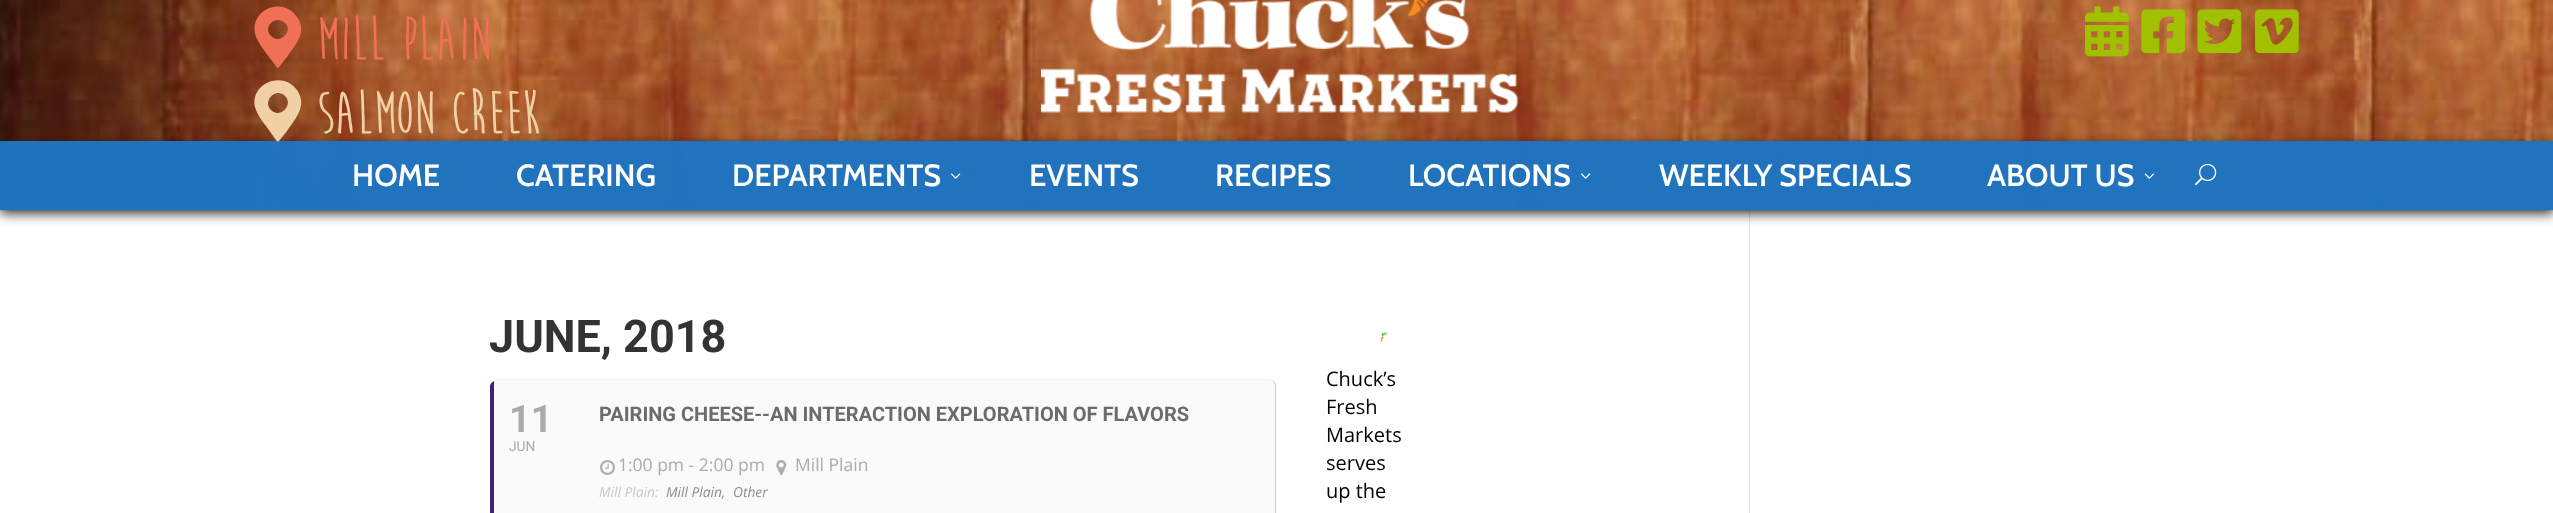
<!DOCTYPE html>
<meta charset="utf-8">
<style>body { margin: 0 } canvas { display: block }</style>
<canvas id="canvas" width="2553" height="513"></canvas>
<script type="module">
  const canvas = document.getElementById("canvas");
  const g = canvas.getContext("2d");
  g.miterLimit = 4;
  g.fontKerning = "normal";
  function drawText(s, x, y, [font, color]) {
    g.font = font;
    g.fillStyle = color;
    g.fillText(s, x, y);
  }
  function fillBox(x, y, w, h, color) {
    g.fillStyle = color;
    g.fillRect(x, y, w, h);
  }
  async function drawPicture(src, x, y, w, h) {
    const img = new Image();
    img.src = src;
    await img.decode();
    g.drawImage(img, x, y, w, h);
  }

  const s1 = ["bold 61.5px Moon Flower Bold", "#F07056"];
  const s2 = ["bold 61.5px Moon Flower Bold", "#F1D0A5"];
  const s3 = ["600 30.75px Cabin", "#FFFFFF"];
  const s4 = ["bold 45px Roboto", "#333333"];
  const s5 = ["bold 38px Roboto", "#ABABAB"];
  const s6 = ["13.75px Roboto", "#ABABAB"];
  const s7 = ["bold 20px Roboto", "#6B6B6B"];
  const s8 = ["17.5px Open Sans", "#ABABAB"];
  const s9 = ["italic 13.75px Open Sans", "#C8C8C8"];
  const s10 = ["italic 13.75px Open Sans", "#8C8C8C"];
  const s11 = ["20px Open Sans", "#000000"];

  fillBox(0, 0, 2553, 513, "#FFFFFF");
  fillBox(1749, 210, 1, 303, "#E2E2E2");
  g.fillStyle = "rgba(0, 0, 0, 0.1)";
  g.beginPath();
  g.moveTo(0, 210);
  g.lineTo(0, 211);
  g.lineTo(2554, 211);
  g.lineTo(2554, -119);
  g.lineTo(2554, 210);
  g.closePath();
  g.fill();
  await drawPicture("pic1.png", 0, 0, 2553, 210);
  g.fillStyle = "#F07056";
  g.beginPath();
  g.moveTo(276, 66);
  g.lineTo(266, 53);
  g.bezierCurveTo(262, 47, 257, 41, 255, 34);
  g.bezierCurveTo(250, 9, 283, -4, 297, 17);
  g.bezierCurveTo(308, 32, 295, 45, 287, 57);
  g.lineTo(279, 67);
  g.bezierCurveTo(278, 68, 276, 68, 276, 66);
  g.closePath();
  g.moveTo(271, 36);
  g.bezierCurveTo(280, 45, 294, 31, 285, 23);
  g.bezierCurveTo(276, 14, 262, 27, 271, 36);
  g.closePath();
  g.fill();
  drawText("mill plain", 317, 59, s1);
  g.save();
  g.beginPath();
  g.moveTo(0, 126);
  g.lineTo(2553, 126);
  g.lineTo(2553, 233);
  g.lineTo(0, 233);
  g.closePath();
  g.moveTo(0, 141);
  g.lineTo(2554, 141);
  g.lineTo(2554, 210);
  g.lineTo(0, 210);
  g.closePath();
  g.clip("evenodd");
  g.fillStyle = "rgba(0, 0, 0, 0.75)";
  g.filter = "blur(6px)";
  g.beginPath();
  g.rect(0, 145, 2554, 69);
  g.fill();
  g.filter = "none";
  g.restore();
  fillBox(0, 141, 2553, 69, "rgba(30, 115, 190, 0.99)");
  g.fillStyle = "#F1D0A5";
  g.beginPath();
  g.moveTo(276, 140);
  g.lineTo(266, 126);
  g.bezierCurveTo(262, 121, 257, 114, 255, 107);
  g.bezierCurveTo(250, 83, 283, 70, 297, 90);
  g.bezierCurveTo(308, 106, 295, 119, 287, 131);
  g.lineTo(279, 141);
  g.bezierCurveTo(278, 142, 276, 141, 276, 140);
  g.closePath();
  g.moveTo(271, 110);
  g.bezierCurveTo(280, 119, 294, 105, 285, 96);
  g.bezierCurveTo(276, 87, 262, 101, 271, 110);
  g.closePath();
  g.fill();
  drawText("salmon creek", 317, 133, s2);
  await drawPicture("pic2.png", 1041, 0, 478, 113);
  await drawPicture("pic3.png", 2085, 6, 44, 51);
  await drawPicture("pic4.png", 2141, 9, 44, 45);
  await drawPicture("pic5.png", 2197, 9, 45, 45);
  await drawPicture("pic6.png", 2255, 9, 44, 45);
  drawText("HOME", 352, 186, s3);
  drawText("CATERING", 516, 186, s3);
  drawText("DEPARTMENTS", 732, 186, s3);
  await drawPicture("pic7.png", 951, 173, 10, 6);
  drawText("EVENTS", 1029, 186, s3);
  drawText("RECIPES", 1215, 186, s3);
  drawText("LOCATIONS", 1408, 186, s3);
  await drawPicture("pic8.png", 1581, 173, 10, 6);
  drawText("WEEKLY SPECIALS", 1659, 186, s3);
  drawText("ABOUT US", 1987, 186, s3);
  await drawPicture("pic9.png", 2144, 173, 10, 6);
  await drawPicture("pic10.png", 2195, 163, 22, 23);
  drawText("JUNE, 2018", 489, 352, s4);
  g.fillStyle = "#EFEEEE";
  g.beginPath();
  g.moveTo(498, 379);
  g.lineTo(1269, 379);
  g.bezierCurveTo(1271, 379, 1273, 380, 1274, 381);
  g.lineTo(1273, 382);
  g.bezierCurveTo(1272, 381, 1270, 380, 1269, 380);
  g.lineTo(498, 380);
  g.bezierCurveTo(493, 380, 490, 383, 490, 386);
  g.bezierCurveTo(490, 382, 493, 379, 498, 379);
  g.closePath();
  g.fill();
  g.fillStyle = "#CDCDCD";
  g.beginPath();
  g.moveTo(1273, 382);
  g.lineTo(1274, 381);
  g.bezierCurveTo(1275, 382, 1276, 384, 1276, 386);
  g.lineTo(1276, 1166);
  g.bezierCurveTo(1276, 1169, 1274, 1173, 1271, 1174);
  g.lineTo(1270, 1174);
  g.bezierCurveTo(1273, 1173, 1275, 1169, 1275, 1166);
  g.lineTo(1275, 386);
  g.bezierCurveTo(1275, 384, 1274, 383, 1273, 382);
  g.closePath();
  g.fill();
  g.fillStyle = "#FAFAFA";
  g.beginPath();
  g.moveTo(498, 380);
  g.bezierCurveTo(493, 380, 490, 383, 490, 386);
  g.lineTo(490, 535);
  g.lineTo(1275, 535);
  g.lineTo(1275, 386);
  g.bezierCurveTo(1275, 383, 1272, 380, 1269, 380);
  g.closePath();
  g.fill();
  g.fillStyle = "#482073";
  g.beginPath();
  g.moveTo(494, 381);
  g.bezierCurveTo(492, 382, 490, 384, 490, 386);
  g.lineTo(490, 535);
  g.lineTo(494, 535);
  g.closePath();
  g.fill();
  drawText("11", 509, 432, s5);
  drawText("JUN", 509, 451, s6);
  drawText("PAIRING CHEESE--AN INTERACTION EXPLORATION OF FLAVORS", 599, 421, s7);
  await drawPicture("pic11.png", 600, 460, 15, 15);
  drawText("1:00 pm - 2:00 pm", 618, 471, s8);
  await drawPicture("pic12.png", 776, 460, 11, 15);
  drawText("Mill Plain", 795, 471, s8);
  drawText("Mill Plain:", 599, 497, s9);
  drawText("Mill Plain,", 666, 497, s10);
  drawText("Other", 733, 497, s10);
  await drawPicture("pic13.png", 1380, 332, 8, 10);
  drawText("Chuck’s", 1326, 386, s11);
  drawText("Fresh", 1326, 414, s11);
  drawText("Markets", 1326, 442, s11);
  drawText("serves", 1326, 470, s11);
  drawText("up the", 1326, 498, s11);
</script>
